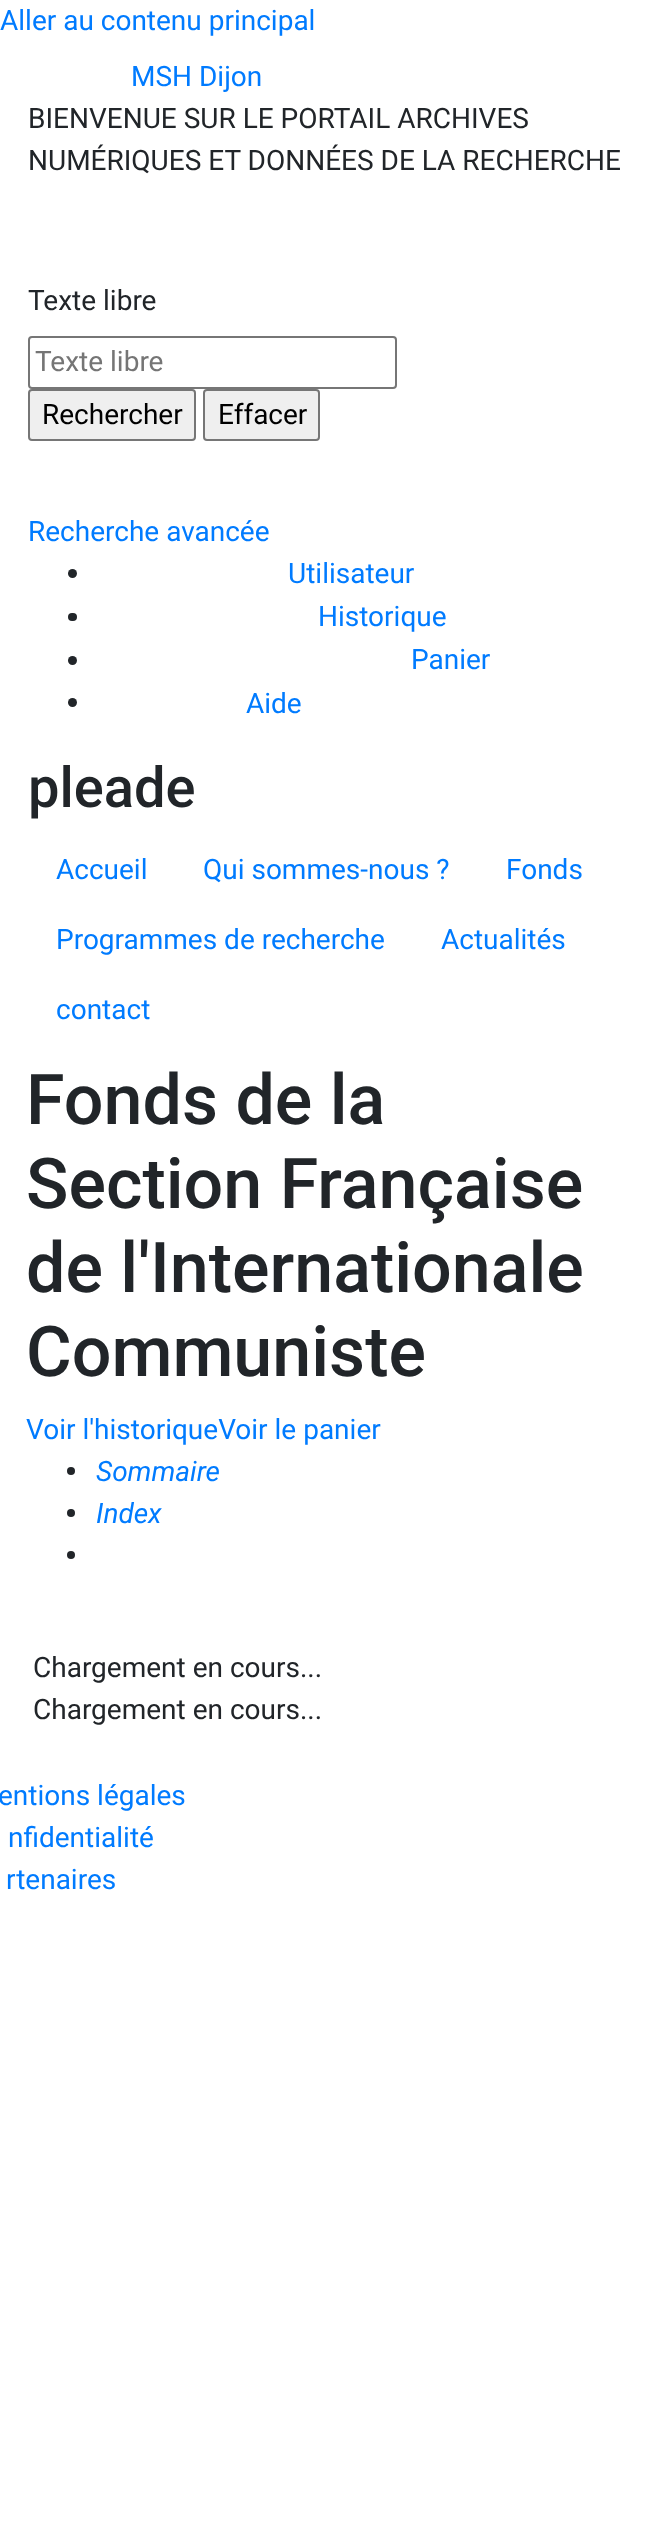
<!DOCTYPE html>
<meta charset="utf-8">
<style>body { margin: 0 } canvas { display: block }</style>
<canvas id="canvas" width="658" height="2522"></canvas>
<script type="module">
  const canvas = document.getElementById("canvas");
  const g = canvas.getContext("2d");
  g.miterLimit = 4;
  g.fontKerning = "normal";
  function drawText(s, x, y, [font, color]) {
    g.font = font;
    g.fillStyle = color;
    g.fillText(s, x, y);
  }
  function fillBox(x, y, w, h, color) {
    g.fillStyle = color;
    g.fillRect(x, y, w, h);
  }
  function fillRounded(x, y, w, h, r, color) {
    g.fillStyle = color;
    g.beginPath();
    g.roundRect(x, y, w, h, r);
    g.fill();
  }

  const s1 = ["28px Roboto", "#007BFF"];
  const s2 = ["28px Roboto", "#212529"];
  const s3 = ["28px Roboto", "#757575"];
  const s4 = ["28px Roboto", "#000000"];
  const s5 = ["500 56px Roboto", "#212529"];
  const s6 = ["500 70px Roboto", "#212529"];
  const s7 = ["italic 28px Roboto", "#007BFF"];

  fillBox(0, 0, 658, 2522, "#FFFFFF");
  drawText("Aller au contenu principal", 0, 30, s1);
  drawText("MSH Dijon", 131, 86, s1);
  drawText("BIENVENUE SUR LE PORTAIL ARCHIVES", 28, 128, s2);
  drawText("NUMÉRIQUES ET DONNÉES DE LA RECHERCHE", 28, 170, s2);
  drawText("Texte libre", 28, 310, s2);
  g.beginPath();
  g.roundRect(29, 337, 367, 51, 3);
  g.strokeStyle = "#767676";
  g.lineWidth = 2;
  g.stroke();
  drawText("Texte libre", 35, 371, s3);
  g.fillStyle = "#EFEFEF";
  g.beginPath();
  g.roundRect(29, 390, 166, 50, 3);
  g.fill();
  g.stroke();
  drawText("Rechercher", 42, 424, s4);
  g.fillStyle = "#EFEFEF";
  g.beginPath();
  g.roundRect(204, 390, 115, 50, 3);
  g.fill();
  g.stroke();
  drawText("Effacer", 218, 424, s4);
  drawText("Recherche avancée", 28, 541, s1);
  g.fillStyle = "#212529";
  g.beginPath();
  g.arc(72.5, 573.5, 4.5, 0, Math.PI * 2);
  g.fill();
  drawText("Utilisateur", 288, 583, s1);
  fillRounded(68, 613, 9, 8, 4, "#212529");
  drawText("Historique", 318, 626, s1);
  g.fillStyle = "#212529";
  g.beginPath();
  g.arc(72.5, 660.5, 4.5, 0, Math.PI * 2);
  g.fill();
  drawText("Panier", 411, 669, s1);
  g.fillStyle = "#212529";
  g.beginPath();
  g.arc(72.5, 702.5, 4.5, 0, Math.PI * 2);
  g.fill();
  drawText("Aide", 246, 713, s1);
  drawText("pleade", 28, 807, s5);
  drawText("Accueil", 56, 879, s1);
  drawText("Qui sommes-nous ?", 203, 879, s1);
  drawText("Fonds", 506, 879, s1);
  drawText("Programmes de recherche", 56, 949, s1);
  drawText("Actualités", 441, 949, s1);
  drawText("contact", 56, 1019, s1);
  drawText("Fonds de la", 26, 1124, s6);
  drawText("Section Française", 26, 1208, s6);
  drawText("de l'Internationale", 26, 1292, s6);
  drawText("Communiste", 26, 1376, s6);
  drawText("Voir l'historiqueVoir le panier", 26, 1439, s1);
  g.fillStyle = "#212529";
  g.beginPath();
  g.arc(71, 1471, 4, 0, Math.PI * 2);
  g.fill();
  drawText("Sommaire", 96, 1481, s7);
  g.fillStyle = "#212529";
  g.beginPath();
  g.arc(71, 1513, 4, 0, Math.PI * 2);
  g.fill();
  drawText("Index", 96, 1523, s7);
  g.fillStyle = "#212529";
  g.beginPath();
  g.arc(71, 1555, 4, 0, Math.PI * 2);
  g.fill();
  drawText("Chargement en cours...", 33, 1677, s2);
  drawText("Chargement en cours...", 33, 1719, s2);
  drawText("entions légales", -2, 1805, s1);
  drawText("nfidentialité", 8, 1847, s1);
  drawText("rtenaires", 6, 1889, s1);
</script>
